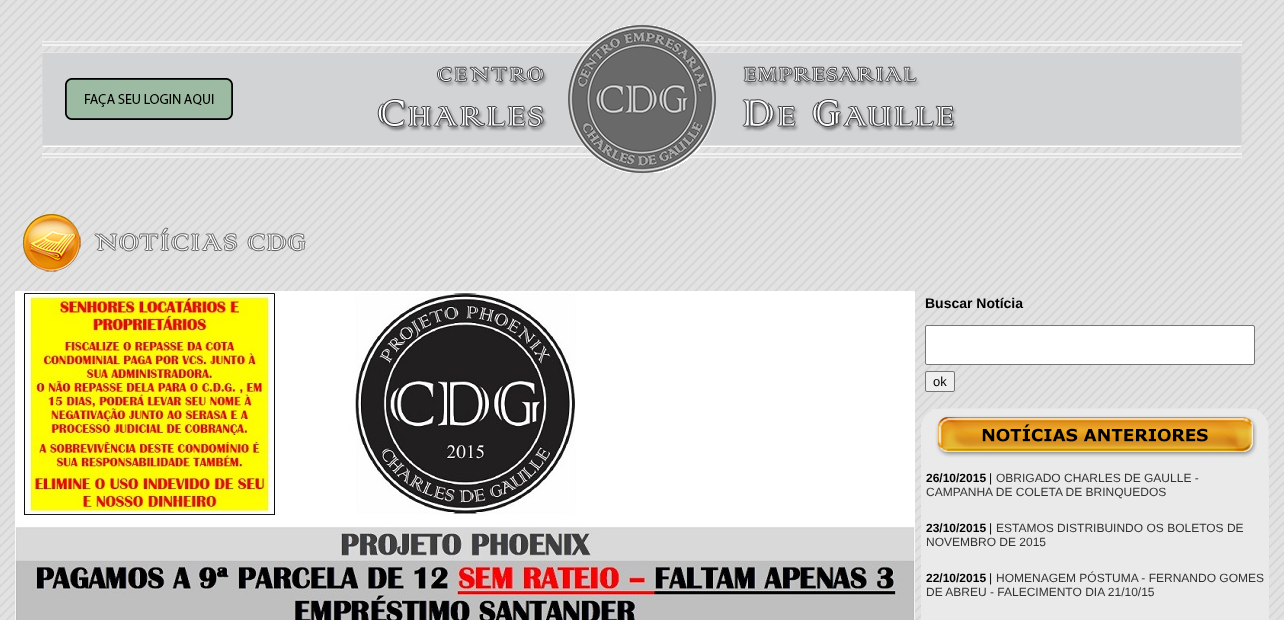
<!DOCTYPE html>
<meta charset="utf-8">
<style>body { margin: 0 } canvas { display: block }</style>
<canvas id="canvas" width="1284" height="620"></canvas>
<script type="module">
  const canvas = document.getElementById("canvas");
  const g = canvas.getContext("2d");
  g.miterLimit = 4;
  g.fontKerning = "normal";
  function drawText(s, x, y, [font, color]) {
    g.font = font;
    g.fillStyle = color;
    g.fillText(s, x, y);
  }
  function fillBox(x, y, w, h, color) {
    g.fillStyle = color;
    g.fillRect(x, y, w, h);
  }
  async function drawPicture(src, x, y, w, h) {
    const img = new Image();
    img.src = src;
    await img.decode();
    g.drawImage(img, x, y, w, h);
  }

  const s1 = ["bold 14px Liberation Sans", "#000000"];
  const s2 = ["13px Liberation Sans", "#000000"];
  const s3 = ["bold 12px Liberation Sans", "#000000"];
  const s4 = ["12px Liberation Sans", "#000000"];
  const s5 = ["12px Liberation Sans", "#333333"];

  fillBox(0, 0, 1284, 620, "#FFFFFF");
  await drawPicture("pic1.png", 0, 0, 1284, 620);
  await drawPicture("pic2.png", 42, 25, 1200, 148);
  await drawPicture("pic3.png", 65, 78, 168, 42);
  await drawPicture("pic4.png", 23, 214, 283, 58);
  await drawPicture("pic5.png", 15, 291, 900, 329);
  drawText("Buscar Notícia", 925, 308, s1);
  g.fillStyle = "#FFFFFF";
  g.beginPath();
  g.roundRect(925.5, 325.5, 329, 39, 1.5);
  g.fill();
  g.strokeStyle = "#767676";
  g.stroke();
  g.fillStyle = "#EFEFEF";
  g.beginPath();
  g.roundRect(925.5, 371.5, 29, 20, 1.5);
  g.fill();
  g.stroke();
  drawText("ok", 933, 386, s2);
  await drawPicture("pic6.png", 921, 408, 348, 58);
  fillBox(921, 466, 348, 154, "#EAEAEA");
  drawText("26/10/2015", 926, 482, s3);
  drawText("|", 989, 482, s4);
  drawText("OBRIGADO CHARLES DE GAULLE -", 996, 482, s5);
  drawText("CAMPANHA DE COLETA DE BRINQUEDOS", 926, 496, s5);
  drawText("23/10/2015", 926, 532, s3);
  drawText("|", 989, 532, s4);
  drawText("ESTAMOS DISTRIBUINDO OS BOLETOS DE", 996, 532, s5);
  drawText("NOVEMBRO DE 2015", 926, 546, s5);
  drawText("22/10/2015", 926, 582, s3);
  drawText("|", 989, 582, s4);
  drawText("HOMENAGEM PÓSTUMA - FERNANDO GOMES", 996, 582, s5);
  drawText("DE ABREU - FALECIMENTO DIA 21/10/15", 926, 596, s5);
</script>
